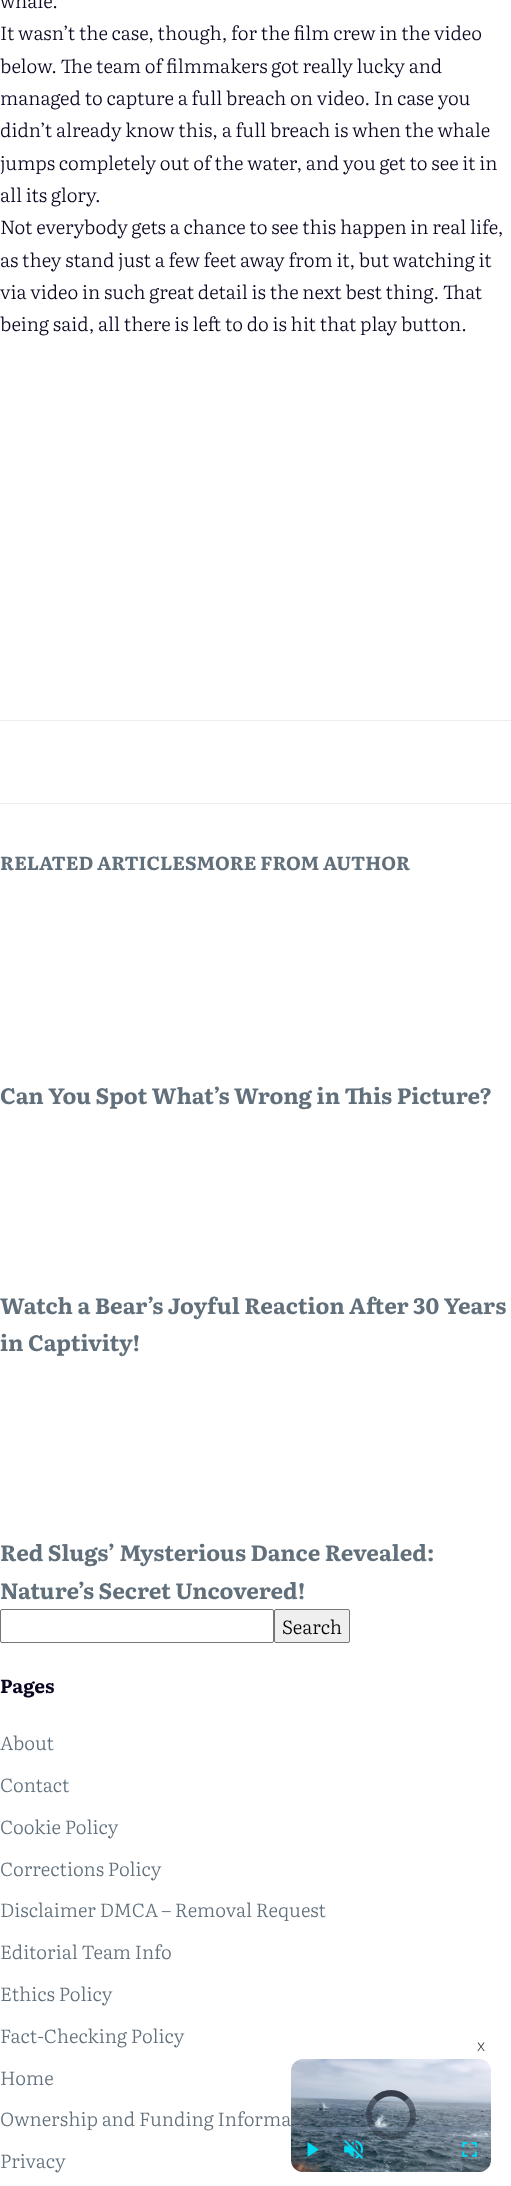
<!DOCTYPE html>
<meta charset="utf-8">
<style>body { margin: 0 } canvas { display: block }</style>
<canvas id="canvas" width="511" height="2186"></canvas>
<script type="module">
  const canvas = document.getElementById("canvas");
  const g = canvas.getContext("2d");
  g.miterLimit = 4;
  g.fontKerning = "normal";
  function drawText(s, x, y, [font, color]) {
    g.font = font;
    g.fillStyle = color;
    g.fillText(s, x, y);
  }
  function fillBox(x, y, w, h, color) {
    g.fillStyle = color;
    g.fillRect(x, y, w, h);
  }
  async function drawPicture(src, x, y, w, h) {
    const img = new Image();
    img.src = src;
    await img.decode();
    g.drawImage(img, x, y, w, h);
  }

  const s1 = ["300 19px Literata", "#0B0521"];
  const s2 = ["300 16px Noto Sans", "#333333"];
  const s3 = ["300 19px Literata", "#62707C"];
  const s4 = ["bold 19px Literata", "#62707C"];
  const s5 = ["bold 22.25px Literata", "#62707C"];
  const s6 = ["300 19px Literata", "#000000"];
  const s7 = ["bold 19px Literata", "#0B0521"];

  fillBox(0, 0, 511, 2186, "#FFFFFF");
  drawText("whale.", 0, 8, s1);
  drawText("It wasn’t the case, though, for the film crew in the video", 0, 40, s1);
  drawText("below. The team of filmmakers got really lucky and", 0, 73, s1);
  drawText("managed to capture a full breach on video. In case you", 0, 105, s1);
  drawText("didn’t already know this, a full breach is when the whale", 0, 137, s1);
  drawText("jumps completely out of the water, and you get to see it in", 0, 170, s1);
  drawText("all its glory.", 0, 202, s1);
  drawText("Not everybody gets a chance to see this happen in real life,", 0, 234, s1);
  drawText("as they stand just a few feet away from it, but watching it", 0, 267, s1);
  drawText("via video in such great detail is the next best thing. That", 0, 299, s1);
  drawText("being said, all there is left to do is hit that play button.", 0, 331, s1);
  drawText("x", 477, 2051, s2);
  drawText("Ownership and Funding Informa", 0, 2126, s3);
  await drawPicture("pic1.png", 291, 2059, 200, 113);
  g.beginPath();
  g.arc(391, 2115, 22, 0, Math.PI * 2);
  g.strokeStyle = "rgba(43, 51, 63, 0.59)";
  g.lineWidth = 6;
  g.stroke();
  g.beginPath();
  g.moveTo(375.5, 2099.5);
  g.bezierCurveTo(384, 2091, 398, 2091, 406.5, 2099.5);
  g.stroke();
  g.beginPath();
  g.moveTo(375.5, 2099.5);
  g.bezierCurveTo(384, 2091, 398, 2091, 406.5, 2099.5);
  g.stroke();
  fillBox(291, 2127, 200, 4, "rgba(115, 133, 159, 0.5)");
  g.fillStyle = "#03D8F3";
  g.beginPath();
  g.moveTo(307.5, 2142);
  g.lineTo(307.5, 2157);
  g.lineTo(319, 2149.5);
  g.closePath();
  g.fill();
  await drawPicture("pic2.png", 344, 2140, 19, 19);
  await drawPicture("pic3.png", 462, 2142, 15, 15);
  fillBox(0, 720, 511, 1, "#EDEDED");
  fillBox(0, 803, 511, 1, "#EDEDED");
  drawText("RELATED ARTICLESMORE FROM AUTHOR", 0, 870, s4);
  drawText("Can You Spot What’s Wrong in This Picture?", 0, 1104, s5);
  drawText("Watch a Bear’s Joyful Reaction After 30 Years", 0, 1314, s5);
  drawText("in Captivity!", 0, 1351, s5);
  drawText("Red Slugs’ Mysterious Dance Revealed:", 0, 1561, s5);
  drawText("Nature’s Secret Uncovered!", 0, 1599, s5);
  g.beginPath();
  g.roundRect(0.5, 1609.5, 273, 33, 1.5);
  g.strokeStyle = "#767676";
  g.lineWidth = 1;
  g.stroke();
  g.fillStyle = "#EFEFEF";
  g.beginPath();
  g.roundRect(274.5, 1609.5, 75, 33, 1.5);
  g.fill();
  g.stroke();
  drawText("Search", 282, 1634, s6);
  drawText("Pages", 0, 1693, s7);
  drawText("About", 0, 1750, s3);
  drawText("Contact", 0, 1792, s3);
  drawText("Cookie Policy", 0, 1834, s3);
  drawText("Corrections Policy", 0, 1876, s3);
  drawText("Disclaimer DMCA – Removal Request", 0, 1917, s3);
  drawText("Editorial Team Info", 0, 1959, s3);
  drawText("Ethics Policy", 0, 2001, s3);
  drawText("Fact-Checking Policy", 0, 2043, s3);
  drawText("Home", 0, 2085, s3);
  drawText("Privacy", 0, 2168, s3);
</script>
